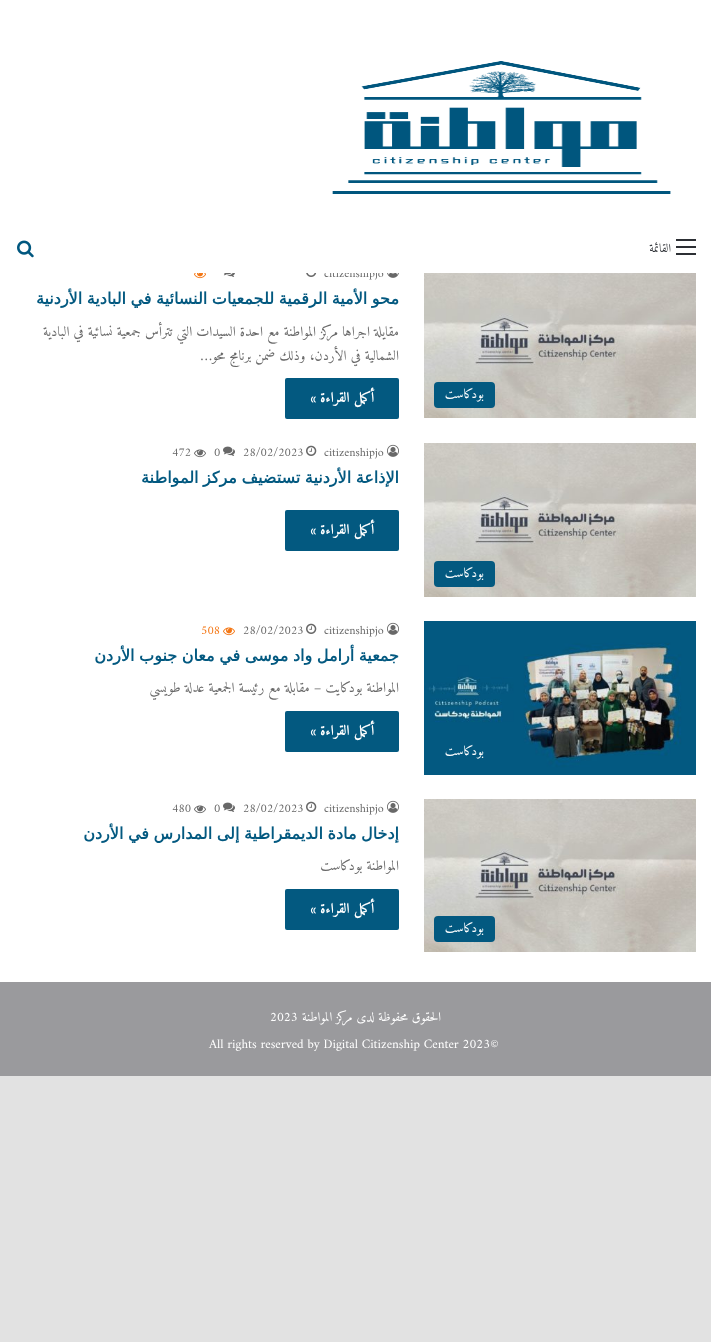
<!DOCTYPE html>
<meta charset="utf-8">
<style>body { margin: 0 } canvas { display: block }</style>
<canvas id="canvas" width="711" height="1342"></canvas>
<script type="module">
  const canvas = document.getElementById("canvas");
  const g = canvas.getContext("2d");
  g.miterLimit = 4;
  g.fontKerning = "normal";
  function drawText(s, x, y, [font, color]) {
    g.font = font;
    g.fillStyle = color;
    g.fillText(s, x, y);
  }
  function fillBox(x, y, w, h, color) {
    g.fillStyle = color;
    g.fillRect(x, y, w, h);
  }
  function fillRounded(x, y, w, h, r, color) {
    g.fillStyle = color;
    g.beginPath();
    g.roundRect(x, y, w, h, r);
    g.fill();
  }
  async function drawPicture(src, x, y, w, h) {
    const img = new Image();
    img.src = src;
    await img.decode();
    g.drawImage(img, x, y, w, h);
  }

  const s1 = ["12px Amiri", "#686868"];
  const s2 = ["12px Amiri", "#2C2F34"];
  const s3 = ["13px Amiri", "#FFFFFF"];
  const s4 = ["bold 16px DejaVu Sans", "#035980"];
  const s5 = ["14px Amiri", "#686868"];
  const s6 = ["bold 14px Amiri", "#FFFFFF"];
  const s7 = ["12px Amiri", "#F47614"];

  fillBox(0, 0, 711, 1342, "#E2E2E2");
  fillBox(0, 273, 711, 709, "#FFFFFF");
  drawText("citizenshipjo", 324, 277, s1);
  fillBox(0, 0, 711, 273, "#FFFFFF");
  await drawPicture("pic1.png", 332, 61, 339, 133);
  fillBox(676, 246, 20, 2, "#2C2F34");
  fillBox(676, 239, 20, 2, "#2C2F34");
  fillBox(676, 253, 20, 2, "#2C2F34");
  g.direction = "rtl";
  drawText("القائمة", 671, 252, s2);
  await drawPicture("pic2.png", 17, 240, 17, 18);
  await drawPicture("pic3.png", 424, 273, 272, 145);
  fillRounded(434, 382, 61, 26, 4, "#035980");
  drawText("بودكاست", 484, 398, s3);
  await drawPicture("pic4.png", 387, 273, 12, 5);
  await drawPicture("pic5.png", 306, 273, 11, 4);
  await drawPicture("pic6.png", 223, 273, 12, 4);
  await drawPicture("pic7.png", 194, 273, 12, 6);
  g.wordSpacing = "-0.5px";
  drawText("محو الأمية الرقمية للجمعيات النسائية في البادية الأردنية", 399, 304, s4);
  g.wordSpacing = "0px";
  drawText("مقايلة اجراها مركز المواطنة مع احدة السيدات التي تترأس جمعية نسائية في البادية", 399, 336, s5);
  drawText("الشمالية في الأردن، وذلك ضمن برنامج محو…", 399, 360, s5);
  fillRounded(285, 378, 114, 41, 2, "#035980");
  drawText("أكمل القراءة »", 374, 402, s6);
  await drawPicture("pic8.png", 387, 444, 12, 13);
  g.direction = "ltr";
  drawText("citizenshipjo", 324, 456, s1);
  await drawPicture("pic9.png", 306, 445, 11, 11);
  drawText("28/02/2023", 243, 456, s1);
  await drawPicture("pic10.png", 223, 446, 12, 10);
  drawText("0", 214, 456, s1);
  await drawPicture("pic11.png", 194, 449, 12, 9);
  drawText("472", 172, 456, s1);
  g.wordSpacing = "-0.5px";
  g.direction = "rtl";
  drawText("الإذاعة الأردنية تستضيف مركز المواطنة", 399, 483, s4);
  fillRounded(285, 510, 114, 41, 2, "#035980");
  g.wordSpacing = "0px";
  drawText("أكمل القراءة »", 374, 534, s6);
  await drawPicture("pic12.png", 424, 443, 272, 154);
  fillRounded(434, 561, 61, 26, 4, "#035980");
  drawText("بودكاست", 484, 577, s3);
  await drawPicture("pic8.png", 387, 622, 12, 13);
  g.direction = "ltr";
  drawText("citizenshipjo", 324, 634, s1);
  await drawPicture("pic9.png", 306, 623, 11, 11);
  drawText("28/02/2023", 243, 634, s1);
  await drawPicture("pic13.png", 223, 627, 12, 9);
  drawText("508", 201, 634, s7);
  g.wordSpacing = "-0.5px";
  g.direction = "rtl";
  drawText("جمعية أرامل واد موسى في معان جنوب الأردن", 399, 661, s4);
  g.wordSpacing = "0px";
  drawText("المواطنة بودكايت – مقابلة مع رئيسة الجمعية عدلة طويسي", 399, 692, s5);
  fillRounded(285, 711, 114, 41, 2, "#035980");
  drawText("أكمل القراءة »", 374, 735, s6);
  await drawPicture("pic14.png", 424, 621, 272, 154);
  drawText("بودكاست", 484, 755, s3);
  await drawPicture("pic8.png", 387, 800, 12, 13);
  g.direction = "ltr";
  drawText("citizenshipjo", 324, 812, s1);
  await drawPicture("pic9.png", 306, 801, 11, 11);
  drawText("28/02/2023", 243, 812, s1);
  await drawPicture("pic10.png", 223, 802, 12, 10);
  drawText("0", 214, 812, s1);
  await drawPicture("pic11.png", 194, 805, 12, 9);
  drawText("480", 172, 812, s1);
  g.wordSpacing = "-0.5px";
  g.direction = "rtl";
  drawText("إدخال مادة الديمقراطية إلى المدارس في الأردن", 399, 839, s4);
  g.wordSpacing = "0px";
  drawText("المواطنة بودكاست", 399, 870, s5);
  fillRounded(285, 889, 114, 41, 2, "#035980");
  drawText("أكمل القراءة »", 374, 913, s6);
  await drawPicture("pic15.png", 424, 799, 272, 153);
  fillRounded(434, 916, 61, 26, 4, "#035980");
  drawText("بودكاست", 484, 932, s3);
  fillBox(0, 982, 711, 94, "#9A9A9D");
  drawText("الحقوق محفوظة لدى مركز المواطنة", 441, 1021, s3);
  g.direction = "ltr";
  drawText("2023", 270, 1021, s3);
  drawText("All rights reserved by Digital Citizenship Center 2023©", 209, 1048, s3);
</script>
